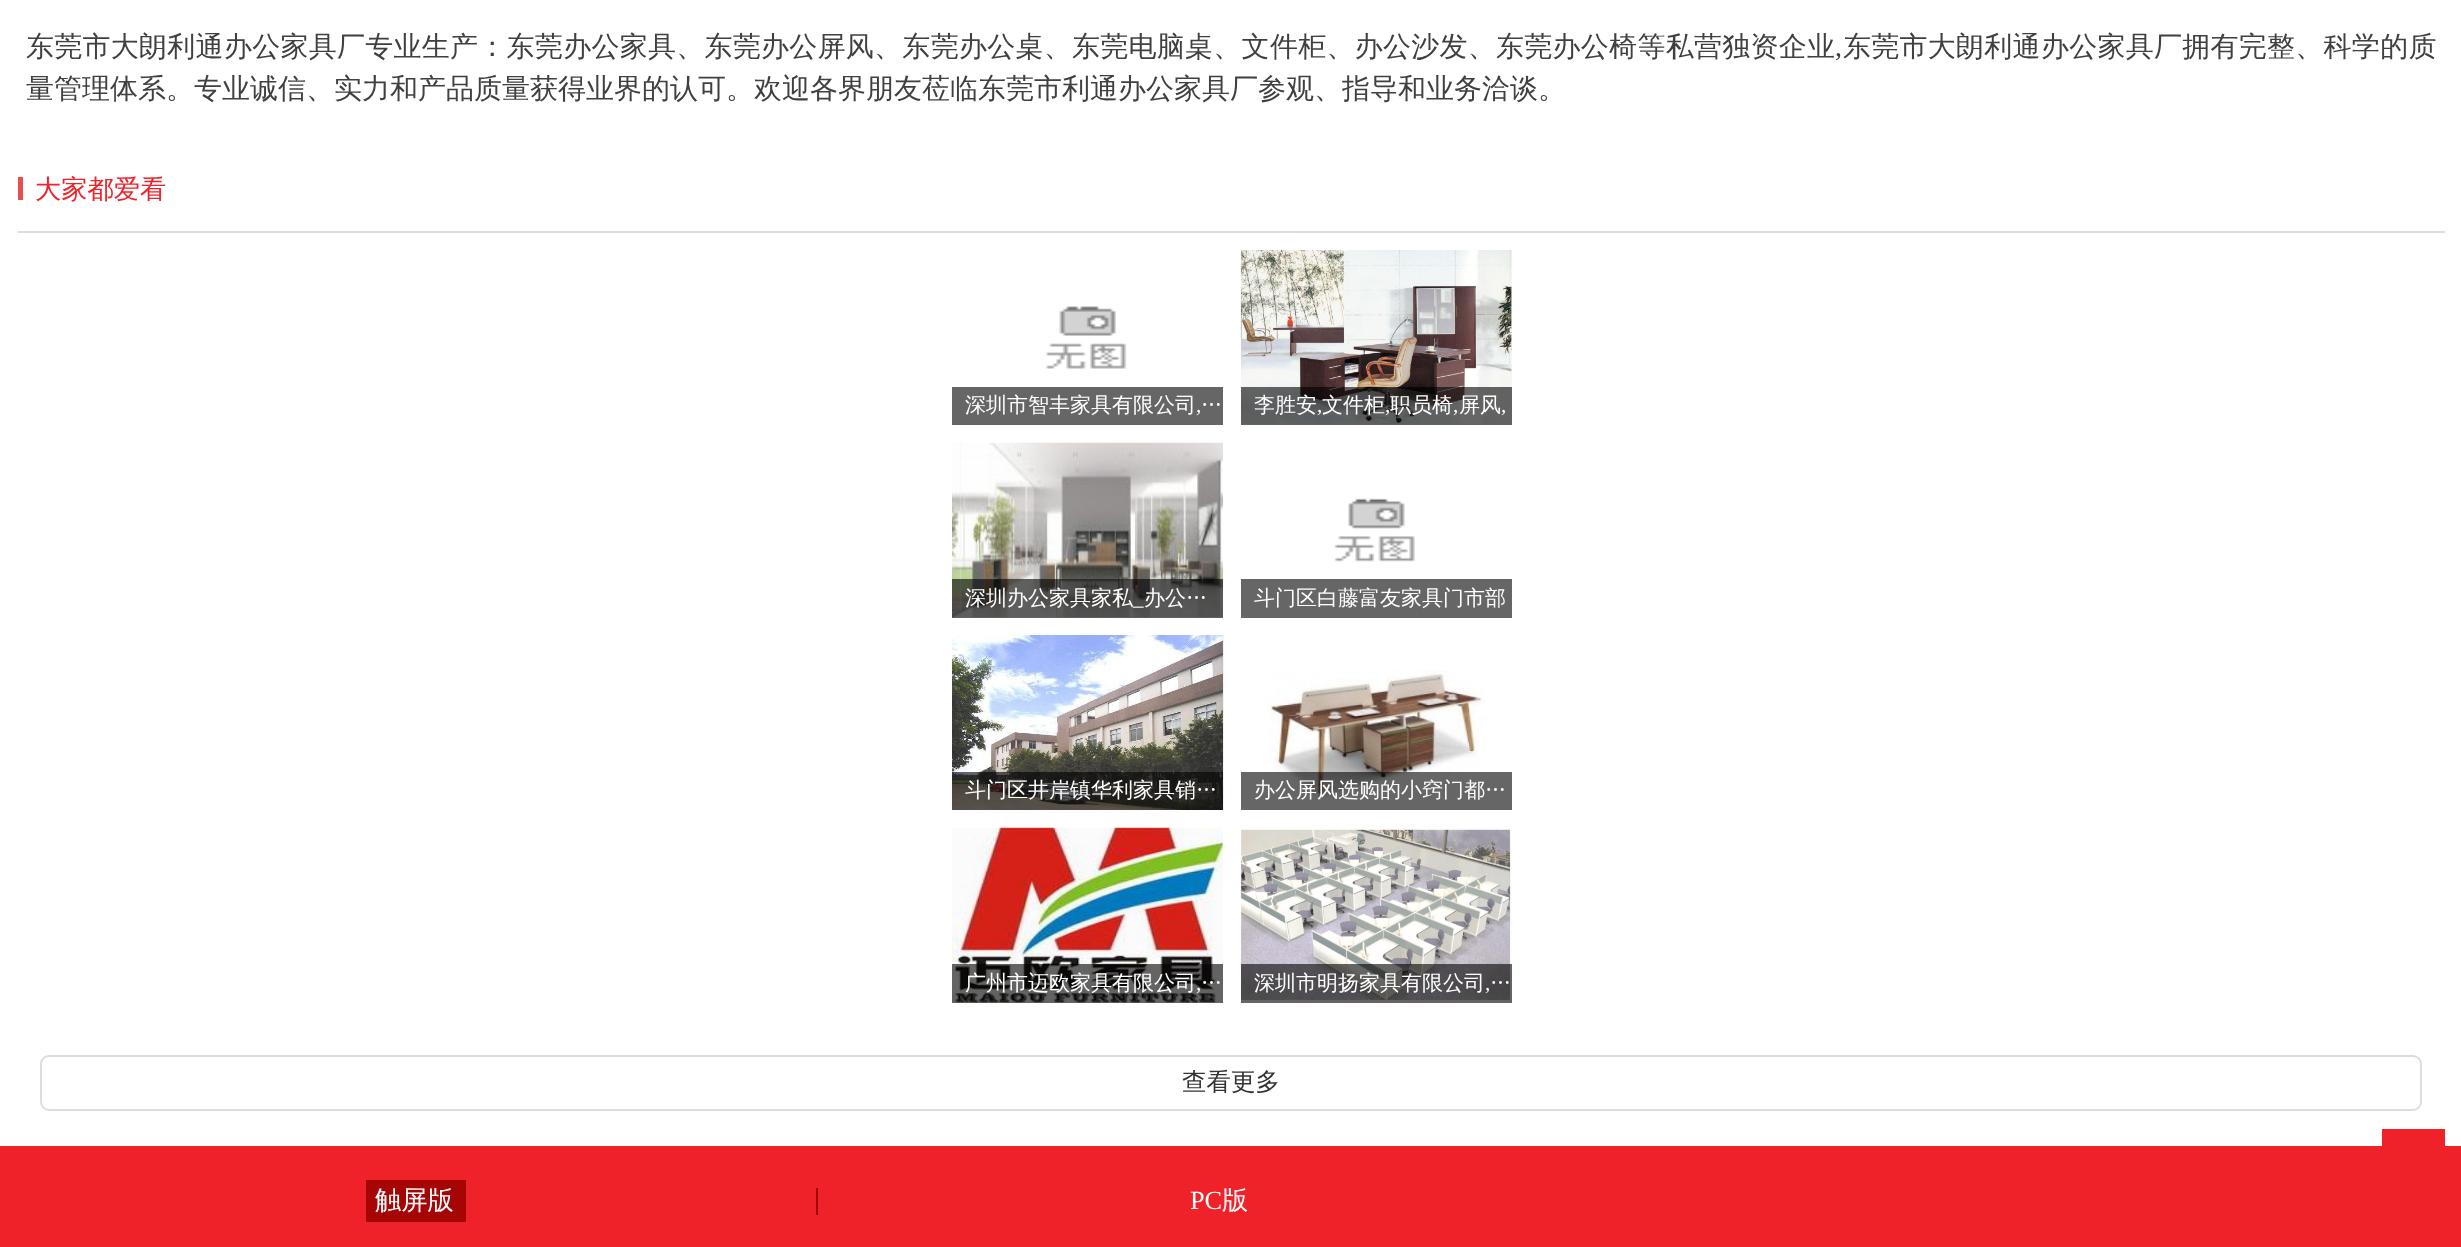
<!DOCTYPE html>
<meta charset="utf-8">
<style>body { margin: 0 } canvas { display: block }</style>
<canvas id="canvas" width="2461" height="1247"></canvas>
<script type="module">
  const canvas = document.getElementById("canvas");
  const g = canvas.getContext("2d");
  g.miterLimit = 4;
  g.fontKerning = "normal";
  function drawText(s, x, y, [font, color]) {
    g.font = font;
    g.fillStyle = color;
    g.fillText(s, x, y);
  }
  function fillBox(x, y, w, h, color) {
    g.fillStyle = color;
    g.fillRect(x, y, w, h);
  }
  async function drawPicture(src, x, y, w, h) {
    const img = new Image();
    img.src = src;
    await img.decode();
    g.drawImage(img, x, y, w, h);
  }

  const s1 = ["500 28px WenQuanYi Zen Hei", "#404040"];
  const s2 = ["28px Liberation Serif", "#404040"];
  const s3 = ["500 26.25px WenQuanYi Zen Hei", "#EF2129"];
  const s4 = ["500 21px WenQuanYi Zen Hei", "#FFFFFF"];
  const s5 = ["21px Liberation Serif", "#FFFFFF"];
  const s6 = ["500 24.5px WenQuanYi Zen Hei", "#333333"];
  const s7 = ["500 26.25px WenQuanYi Zen Hei", "#FFFFFF"];
  const s8 = ["26.25px Liberation Serif", "#FFFFFF"];

  fillBox(0, 0, 2461, 1247, "#FFFFFF");
  g.letterSpacing = "0.27px";
  drawText("东莞市大朗利通办公家具厂专业生产：东莞办公家具、东莞办公屏风、东莞办公桌、东莞电脑桌、文件柜、办公沙发、东莞办公椅等私营独资企业", 26, 56, s1);
  drawText(",", 1835, 56, s2);
  drawText("东莞市大朗利通办公家具厂拥有完整、科学的质", 1843, 56, s1);
  g.letterSpacing = "0px";
  drawText("量管理体系。专业诚信、实力和产品质量获得业界的认可。欢迎各界朋友莅临东莞市利通办公家具厂参观、指导和业务洽谈。", 26, 98, s1);
  fillBox(18, 231, 2427, 2, "#DDDDDD");
  fillBox(18, 177, 5, 23, "#E94E4E");
  drawText("大家都爱看", 35, 198, s3);
  await drawPicture("pic1.png", 1045, 306, 82, 63);
  fillBox(952, 387, 271, 38, "#666666");
  drawText("深圳市智丰家具有限公司", 965, 412, s4);
  drawText("…", 1201, 412, s4);
  drawText(",", 1196, 412, s5);
  await drawPicture("pic2.png", 1240, 250, 272, 175);
  fillBox(1241, 387, 271, 38, "rgba(0, 0, 0, 0.6)");
  drawText("李胜安", 1254, 412, s4);
  drawText(",", 1317, 412, s5);
  drawText("文件柜", 1322, 412, s4);
  drawText(",", 1385, 412, s5);
  drawText("职员椅", 1390, 412, s4);
  drawText(",", 1453, 412, s5);
  drawText("屏风", 1459, 412, s4);
  drawText(",", 1501, 412, s5);
  await drawPicture("pic3.png", 952, 442, 272, 176);
  fillBox(952, 579, 271, 39, "rgba(0, 0, 0, 0.6)");
  drawText("深圳办公家具家私", 965, 605, s4);
  drawText("_", 1133, 605, s5);
  drawText("办公…", 1144, 605, s4);
  await drawPicture("pic4.png", 1334, 498, 81, 64);
  fillBox(1241, 579, 271, 39, "#666666");
  drawText("斗门区白藤富友家具门市部", 1254, 605, s4);
  await drawPicture("pic5.png", 952, 635, 272, 175);
  fillBox(952, 772, 271, 38, "rgba(0, 0, 0, 0.6)");
  drawText("斗门区井岸镇华利家具销…", 965, 797, s4);
  await drawPicture("pic6.png", 1267, 670, 218, 131);
  fillBox(1241, 772, 271, 38, "rgba(0, 0, 0, 0.6)");
  drawText("办公屏风选购的小窍门都…", 1254, 797, s4);
  await drawPicture("pic7.png", 952, 827, 272, 176);
  fillBox(952, 964, 271, 39, "rgba(0, 0, 0, 0.6)");
  drawText("广州市迈欧家具有限公司", 965, 990, s4);
  drawText("…", 1201, 990, s4);
  drawText(",", 1196, 990, s5);
  await drawPicture("pic8.png", 1240, 828, 272, 173);
  fillBox(1241, 964, 271, 39, "rgba(0, 0, 0, 0.6)");
  drawText("深圳市明扬家具有限公司", 1254, 990, s4);
  drawText("…", 1490, 990, s4);
  drawText(",", 1485, 990, s5);
  g.beginPath();
  g.roundRect(41, 1056, 2380, 54, 8);
  g.strokeStyle = "#DDDDDD";
  g.lineWidth = 2;
  g.stroke();
  drawText("查看更多", 1182, 1090, s6);
  fillBox(2382, 1129, 63, 17, "#EF2129");
  fillBox(0, 1146, 2461, 101, "#EF2129");
  fillBox(816, 1188, 2, 27, "#A50505");
  fillBox(366, 1180, 100, 42, "#A50505");
  drawText("触屏版", 375, 1209, s7);
  drawText("PC", 1190, 1209, s8);
  drawText("版", 1222, 1209, s7);
</script>
